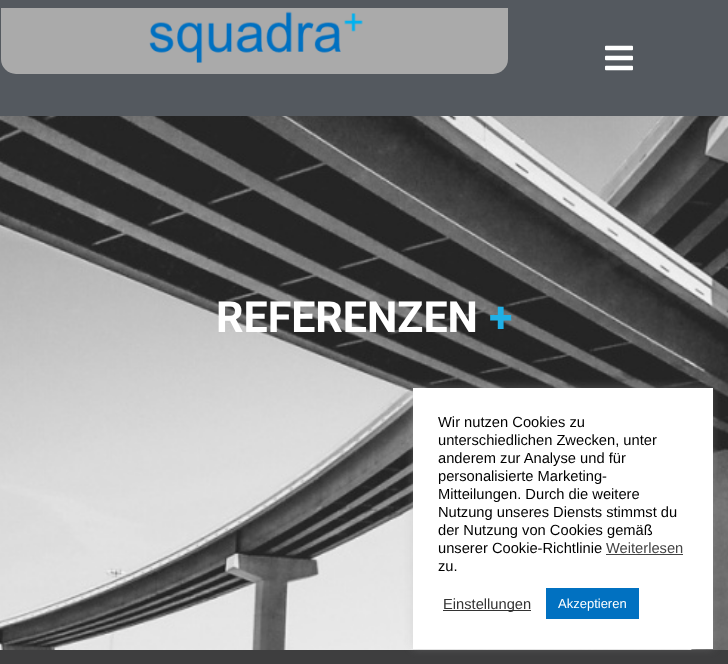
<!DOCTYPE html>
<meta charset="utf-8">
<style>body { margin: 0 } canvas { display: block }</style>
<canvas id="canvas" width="728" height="664"></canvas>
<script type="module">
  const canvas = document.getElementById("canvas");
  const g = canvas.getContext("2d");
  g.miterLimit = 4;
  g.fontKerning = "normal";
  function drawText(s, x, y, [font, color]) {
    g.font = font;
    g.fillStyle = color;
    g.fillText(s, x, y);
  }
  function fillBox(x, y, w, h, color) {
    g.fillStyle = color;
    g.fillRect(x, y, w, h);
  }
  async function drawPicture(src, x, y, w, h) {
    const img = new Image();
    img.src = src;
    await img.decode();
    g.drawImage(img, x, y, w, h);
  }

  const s1 = ["bold 43px Roboto", "#FFFFFF"];
  const s2 = ["bold 43px Roboto", "#1FB0E6"];
  const s3 = ["14.7px Liberation Sans", "#000000"];
  const s4 = ["14.7px Liberation Sans", "#444444"];
  const s5 = ["14.7px Liberation Sans", "#333333"];
  const s6 = ["13px Liberation Sans", "#FFFFFF"];

  fillBox(0, 0, 728, 664, "#3E3E3F");
  fillBox(0, 0, 728, 116, "#54595F");
  g.fillStyle = "#AAAAAA";
  g.beginPath();
  g.roundRect(1, 8, 507, 66, [0, 0, 15, 15]);
  g.fill();
  await drawPicture("pic1.png", 149, 11, 214, 52);
  await drawPicture("pic2.png", 605, 45, 28, 26);
  await drawPicture("pic3.png", 0, 116, 728, 534);
  drawText("REFERENZEN", 216, 332, s1);
  drawText("+", 489, 332, s2);
  g.fillStyle = "rgba(172, 171, 171, 0.3)";
  g.filter = "blur(5px)";
  g.beginPath();
  g.rect(413, 387, 300, 261);
  g.fill();
  g.filter = "none";
  fillBox(413, 388, 300, 261, "#FFFFFF");
  drawText("Wir nutzen Cookies zu", 438, 427, s3);
  drawText("unterschiedlichen Zwecken, unter", 438, 445, s3);
  drawText("anderem zur Analyse und für", 438, 463, s3);
  drawText("personalisierte Marketing-", 438, 481, s3);
  drawText("Mitteilungen. Durch die weitere", 438, 499, s3);
  drawText("Nutzung unseres Diensts stimmst du", 438, 517, s3);
  drawText("der Nutzung von Cookies gemäß", 438, 535, s3);
  drawText("unserer Cookie-Richtlinie", 438, 553, s3);
  drawText("Weiterlesen", 606, 553, s4);
  fillBox(606, 554, 77, 1, "#444444");
  drawText("zu.", 438, 571, s3);
  fillBox(443, 610, 88, 1, "#333333");
  drawText("Einstellungen", 443, 609, s5);
  fillBox(546, 588, 93, 31, "#0171C1");
  drawText("Akzeptieren", 558, 608, s6);
</script>
